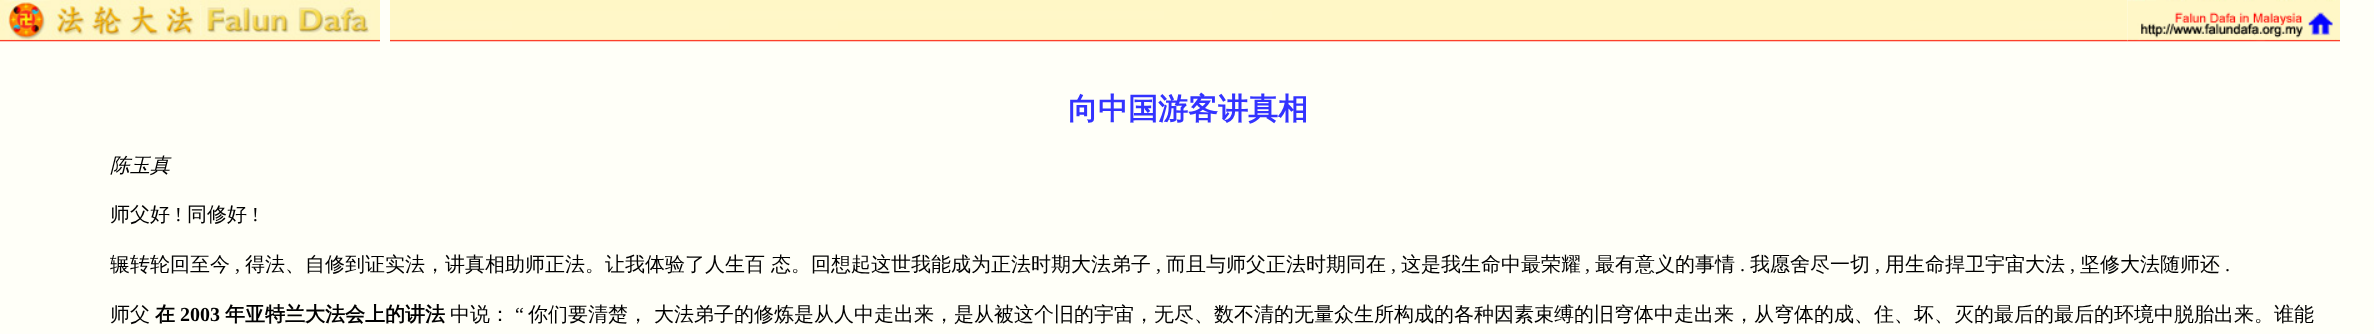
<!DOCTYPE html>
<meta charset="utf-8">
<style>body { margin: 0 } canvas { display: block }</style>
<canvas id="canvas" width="2374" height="334"></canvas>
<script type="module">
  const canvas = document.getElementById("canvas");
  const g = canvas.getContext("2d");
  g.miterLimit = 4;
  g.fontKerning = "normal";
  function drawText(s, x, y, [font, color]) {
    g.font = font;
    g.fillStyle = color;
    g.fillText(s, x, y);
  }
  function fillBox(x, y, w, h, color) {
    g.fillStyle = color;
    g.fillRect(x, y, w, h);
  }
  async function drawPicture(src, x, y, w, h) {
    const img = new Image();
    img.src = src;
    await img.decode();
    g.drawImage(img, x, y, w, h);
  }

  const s1 = ["bold 30px WenQuanYi Zen Hei", "#3333FF"];
  const s2 = ["italic 500 20px WenQuanYi Zen Hei", "#000000"];
  const s3 = ["500 20px WenQuanYi Zen Hei", "#000000"];
  const s4 = ["20px Liberation Serif", "#000000"];
  const s5 = ["bold 20px WenQuanYi Zen Hei", "#000000"];
  const s6 = ["bold 20px Liberation Serif", "#000000"];

  fillBox(0, 0, 2374, 334, "#FFFFF8");
  await drawPicture("pic1.png", 0, 0, 380, 42);
  await drawPicture("pic2.png", 390, 0, 1738, 42);
  await drawPicture("pic3.png", 2127, 0, 213, 42);
  drawText("向中国游客讲真相", 1068, 119, s1);
  drawText("陈玉真", 110, 172, s2);
  drawText("师父好", 110, 221, s3);
  drawText("!", 175, 221, s4);
  drawText("同修好", 187, 221, s3);
  drawText("!", 252, 221, s4);
  drawText("辗转轮回至今", 110, 271, s3);
  drawText(",", 235, 271, s4);
  drawText("得法、自修到证实法，讲真相助师正法。让我体验了人生百 态。回想起这世我能成为正法时期大法弟子", 245, 271, s3);
  drawText(",", 1156, 271, s4);
  drawText("而且与师父正法时期同在", 1166, 271, s3);
  drawText(",", 1391, 271, s4);
  drawText("这是我生命中最荣耀", 1401, 271, s3);
  drawText(",", 1585, 271, s4);
  drawText("最有意义的事情", 1595, 271, s3);
  drawText(".", 1740, 271, s4);
  drawText("我愿舍尽一切", 1750, 271, s3);
  drawText(",", 1875, 271, s4);
  drawText("用生命捍卫宇宙大法", 1885, 271, s3);
  drawText(",", 2070, 271, s4);
  drawText("坚修大法随师还", 2080, 271, s3);
  drawText(".", 2225, 271, s4);
  drawText("师父", 110, 321, s3);
  drawText("在", 155, 321, s5);
  drawText("2003", 180, 321, s6);
  drawText("年亚特兰大法会上的讲法", 225, 321, s5);
  drawText("中说：", 450, 321, s3);
  drawText("“", 515, 321, s4);
  drawText("你们要清楚， 大法弟子的修炼是从人中走出来，是从被这个旧的宇宙，无尽、数不清的无量众生所构成的各种因素束缚的旧穹体中走出来，从穹体的成、住、坏、灭的最后的最后的环境中脱胎出来。谁能", 528, 321, s3);
</script>
